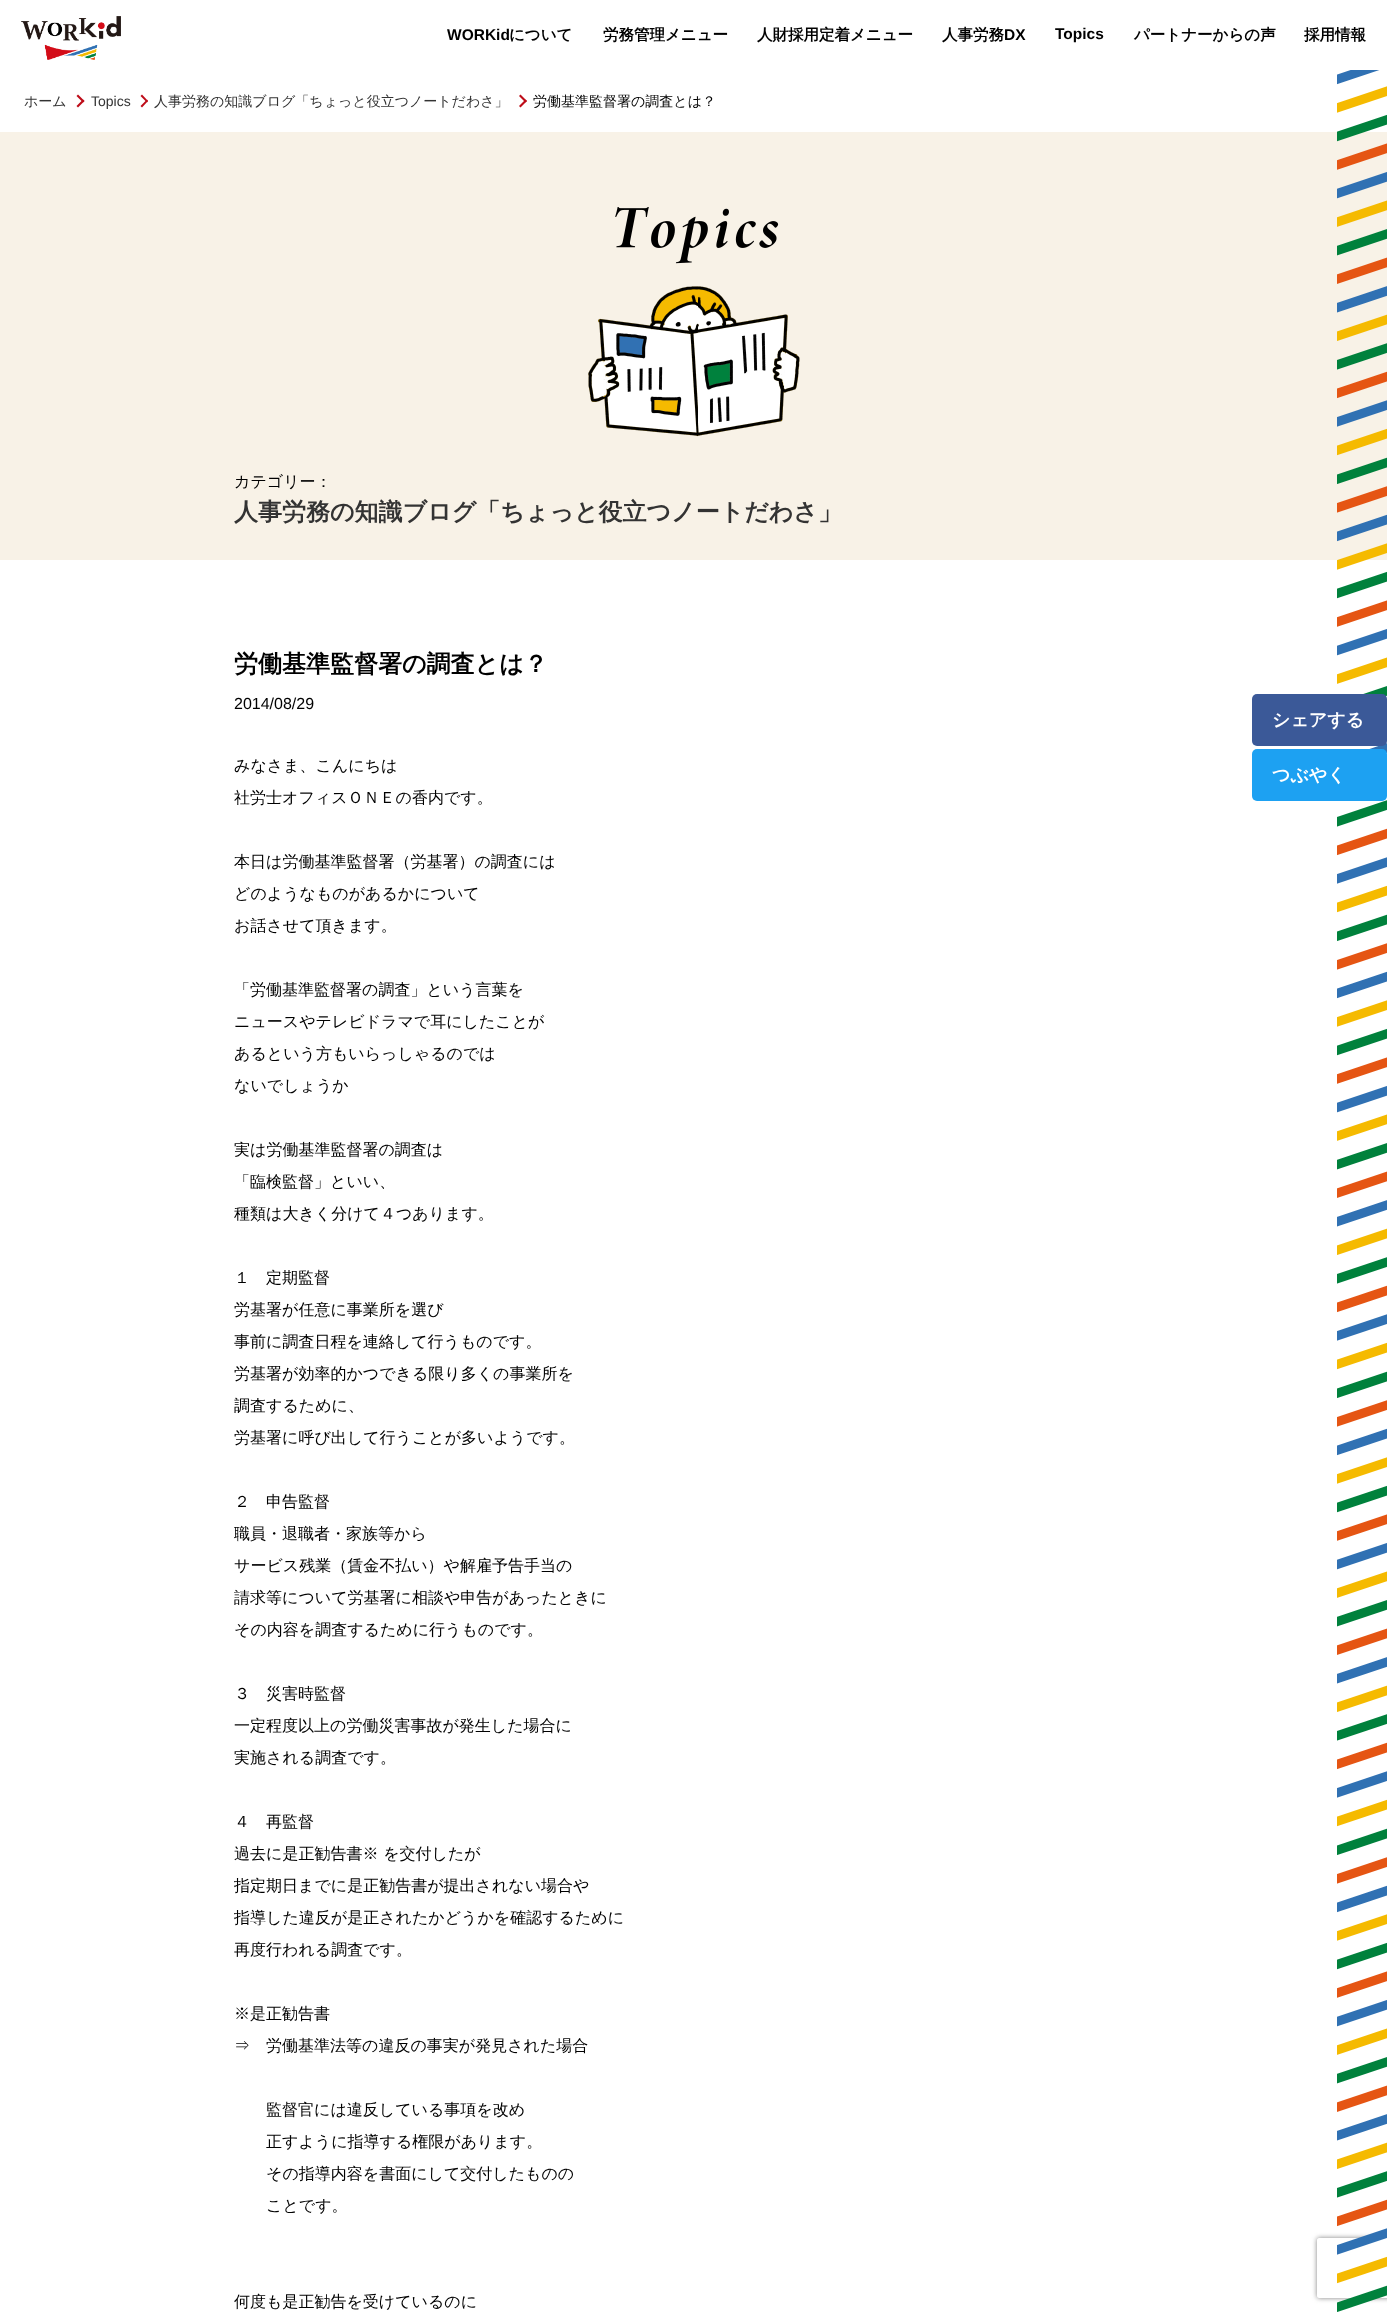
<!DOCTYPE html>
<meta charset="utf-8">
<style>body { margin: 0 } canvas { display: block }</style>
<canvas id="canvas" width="1387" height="2312"></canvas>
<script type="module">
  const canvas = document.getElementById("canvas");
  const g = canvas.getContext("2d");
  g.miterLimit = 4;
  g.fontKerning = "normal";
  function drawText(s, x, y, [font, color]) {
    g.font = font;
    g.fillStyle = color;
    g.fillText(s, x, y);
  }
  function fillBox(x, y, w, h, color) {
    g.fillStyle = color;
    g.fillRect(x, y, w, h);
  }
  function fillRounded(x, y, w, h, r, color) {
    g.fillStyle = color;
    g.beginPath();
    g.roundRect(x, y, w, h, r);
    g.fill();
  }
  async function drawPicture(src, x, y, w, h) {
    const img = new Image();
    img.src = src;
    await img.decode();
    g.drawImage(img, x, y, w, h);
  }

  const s1 = ["bold 15.5px Liberation Sans", "#000000"];
  const s2 = ["bold 15.5px WenQuanYi Zen Hei", "#000000"];
  const s3 = ["500 14px WenQuanYi Zen Hei", "#333333"];
  const s4 = ["14px Liberation Sans", "#333333"];
  const s5 = ["500 14px WenQuanYi Zen Hei", "#000000"];
  const s6 = ["500 16px WenQuanYi Zen Hei", "#000000"];
  const s7 = ["bold 24px WenQuanYi Zen Hei", "#333333"];
  const s8 = ["bold 24px WenQuanYi Zen Hei", "#000000"];
  const s9 = ["16px Liberation Sans", "#000000"];
  const s10 = ["bold 18px WenQuanYi Zen Hei", "#FFFFFF"];

  fillBox(0, 0, 1387, 2312, "#FFFFFF");
  await drawPicture("pic1.png", 21, 16, 100, 44);
  drawText("WORKid", 447, 40, s1);
  drawText("について", 509, 40, s2);
  drawText("労務管理メニュー", 603, 40, s2);
  drawText("人財採用定着メニュー", 757, 40, s2);
  drawText("人事労務", 942, 40, s2);
  drawText("DX", 1004, 40, s1);
  drawText("Topics", 1055, 39, s1);
  drawText("パートナーからの声", 1134, 40, s2);
  drawText("採用情報", 1304, 40, s2);
  drawText("ホーム", 24, 106, s3);
  g.fillStyle = "#BE0C18";
  g.beginPath();
  g.moveTo(78, 94.5);
  g.lineTo(84.5, 101);
  g.lineTo(83, 102.5);
  g.lineTo(76.5, 96);
  g.closePath();
  g.fill();
  g.beginPath();
  g.moveTo(83, 99.5);
  g.lineTo(84.5, 101);
  g.lineTo(78, 107.5);
  g.lineTo(76.5, 106);
  g.closePath();
  g.fill();
  drawText("Topics", 91, 106, s4);
  g.fillStyle = "#BE0C18";
  g.beginPath();
  g.moveTo(142, 94.5);
  g.lineTo(148, 101);
  g.lineTo(147, 102.5);
  g.lineTo(140.5, 96);
  g.closePath();
  g.fill();
  g.beginPath();
  g.moveTo(147, 99.5);
  g.lineTo(148, 101);
  g.lineTo(142, 107.5);
  g.lineTo(140.5, 106);
  g.closePath();
  g.fill();
  drawText("人事労務の知識ブログ「ちょっと役立つノートだわさ」", 154, 106, s3);
  g.fillStyle = "#BE0C18";
  g.beginPath();
  g.moveTo(520.5, 94.5);
  g.lineTo(527, 101);
  g.lineTo(525.5, 102.5);
  g.lineTo(519, 96);
  g.closePath();
  g.fill();
  g.beginPath();
  g.moveTo(525.5, 99.5);
  g.lineTo(527, 101);
  g.lineTo(520.5, 107.5);
  g.lineTo(519, 106);
  g.closePath();
  g.fill();
  drawText("労働基準監督署の調査とは？", 533, 106, s5);
  fillBox(0, 132, 1387, 428, "#F8F2E7");
  await drawPicture("pic2.png", 588, 207, 212, 230);
  drawText("カテゴリー：", 234, 487, s6);
  drawText("人事労務の知識ブログ「ちょっと役立つノートだわさ」", 234, 520, s7);
  drawText("労働基準監督署の調査とは？", 234, 672, s8);
  drawText("2014/08/29", 234, 709, s9);
  drawText("みなさま、こんにちは", 234, 771, s6);
  drawText("社労士オフィスＯＮＥの香内です。", 234, 803, s6);
  drawText("本日は労働基準監督署（労基署）の調査には", 234, 867, s6);
  drawText("どのようなものがあるかについて", 234, 899, s6);
  drawText("お話させて頂きます。", 234, 931, s6);
  drawText("「労働基準監督署の調査」という言葉を", 234, 995, s6);
  drawText("ニュースやテレビドラマで耳にしたことが", 234, 1027, s6);
  drawText("あるという方もいらっしゃるのでは", 234, 1059, s6);
  drawText("ないでしょうか", 234, 1091, s6);
  drawText("実は労働基準監督署の調査は", 234, 1155, s6);
  drawText("「臨検監督」といい、", 234, 1187, s6);
  drawText("種類は大きく分けて４つあります。", 234, 1219, s6);
  drawText("１　定期監督", 234, 1283, s6);
  drawText("労基署が任意に事業所を選び", 234, 1315, s6);
  drawText("事前に調査日程を連絡して行うものです。", 234, 1347, s6);
  drawText("労基署が効率的かつできる限り多くの事業所を", 234, 1379, s6);
  drawText("調査するために、", 234, 1411, s6);
  drawText("労基署に呼び出して行うことが多いようです。", 234, 1443, s6);
  drawText("２　申告監督", 234, 1507, s6);
  drawText("職員・退職者・家族等から", 234, 1539, s6);
  drawText("サービス残業（賃金不払い）や解雇予告手当の", 234, 1571, s6);
  drawText("請求等について労基署に相談や申告があったときに", 234, 1603, s6);
  drawText("その内容を調査するために行うものです。", 234, 1635, s6);
  drawText("３　災害時監督", 234, 1699, s6);
  drawText("一定程度以上の労働災害事故が発生した場合に", 234, 1731, s6);
  drawText("実施される調査です。", 234, 1763, s6);
  drawText("４　再監督", 234, 1827, s6);
  drawText("過去に是正勧告書※ を交付したが", 234, 1859, s6);
  drawText("指定期日までに是正勧告書が提出されない場合や", 234, 1891, s6);
  drawText("指導した違反が是正されたかどうかを確認するために", 234, 1923, s6);
  drawText("再度行われる調査です。", 234, 1955, s6);
  drawText("※是正勧告書", 234, 2019, s6);
  drawText("⇒　労働基準法等の違反の事実が発見された場合", 234, 2051, s6);
  drawText("監督官には違反している事項を改め", 266, 2115, s6);
  drawText("正すように指導する権限があります。", 266, 2147, s6);
  drawText("その指導内容を書面にして交付したものの", 266, 2179, s6);
  drawText("ことです。", 266, 2211, s6);
  drawText("何度も是正勧告を受けているのに", 234, 2307, s6);
  g.save();
  g.beginPath();
  g.moveTo(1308, 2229);
  g.lineTo(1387, 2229);
  g.lineTo(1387, 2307);
  g.lineTo(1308, 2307);
  g.closePath();
  g.moveTo(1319, 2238);
  g.lineTo(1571, 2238);
  g.bezierCurveTo(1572, 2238, 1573, 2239, 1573, 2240);
  g.lineTo(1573, 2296);
  g.bezierCurveTo(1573, 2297, 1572, 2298, 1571, 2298);
  g.lineTo(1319, 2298);
  g.bezierCurveTo(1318, 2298, 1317, 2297, 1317, 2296);
  g.lineTo(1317, 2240);
  g.bezierCurveTo(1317, 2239, 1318, 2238, 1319, 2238);
  g.closePath();
  g.clip("evenodd");
  g.fillStyle = "#808080";
  g.filter = "blur(2.5px)";
  g.beginPath();
  g.roundRect(1317, 2238, 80, 60, 2);
  g.fill();
  g.filter = "none";
  g.restore();
  await drawPicture("pic3.png", 1337, 70, 50, 2242);
  fillRounded(1252, 694, 135, 52, 5, "#3B5998");
  drawText("シェアする", 1272, 726, s10);
  fillRounded(1252, 749, 135, 52, 5, "#1DA1F2");
  drawText("つぶやく", 1272, 781, s10);
</script>
